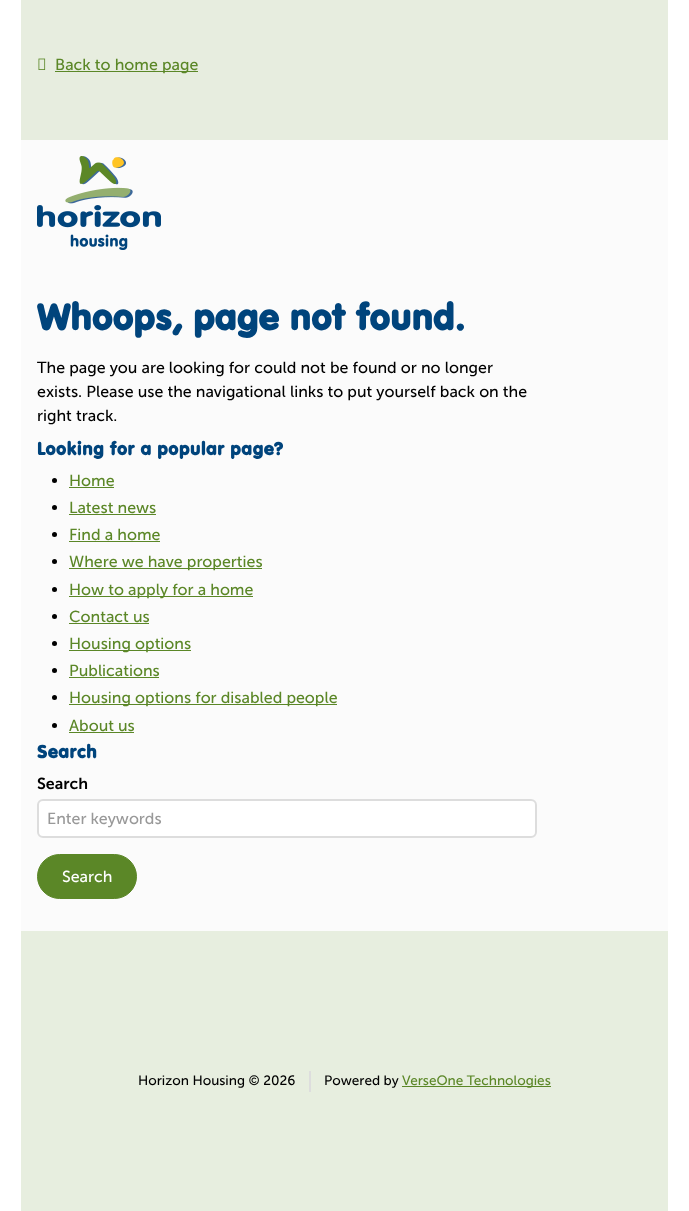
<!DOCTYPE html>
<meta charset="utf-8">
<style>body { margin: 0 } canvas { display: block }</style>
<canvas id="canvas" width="689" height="1211"></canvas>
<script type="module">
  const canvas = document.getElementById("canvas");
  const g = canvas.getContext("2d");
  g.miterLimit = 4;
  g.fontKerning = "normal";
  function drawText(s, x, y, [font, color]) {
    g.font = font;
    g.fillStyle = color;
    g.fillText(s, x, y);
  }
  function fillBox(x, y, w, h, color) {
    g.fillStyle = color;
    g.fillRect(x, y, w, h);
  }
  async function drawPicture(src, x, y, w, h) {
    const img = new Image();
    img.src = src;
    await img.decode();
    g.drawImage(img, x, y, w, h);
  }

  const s1 = ["16px 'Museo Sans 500'", "#5B8727"];
  const s2 = ["bold 38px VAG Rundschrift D", "#00447C"];
  const s3 = ["16px 'Museo Sans 500'", "#000000"];
  const s4 = ["bold 18.75px VAG Rundschrift D", "#00447C"];
  const s5 = ["600 16px 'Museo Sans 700'", "#000000"];
  const s6 = ["16px 'Museo Sans 500'", "#999999"];
  const s7 = ["16px 'Museo Sans 500'", "#FFFFFF"];
  const s8 = ["13.6px 'Museo Sans 500'", "#000000"];
  const s9 = ["13.6px 'Museo Sans 500'", "#5B8727"];

  fillBox(0, 0, 689, 1211, "#FFFFFF");
  fillBox(21, 0, 647, 140, "#E7EDDF");
  await drawPicture("pic1.png", 38, 58, 8, 12);
  fillBox(55, 71, 143, 1, "#5B8727");
  drawText("Back to home page", 55, 70, s1);
  fillBox(21, 140, 647, 791, "#FBFBFB");
  await drawPicture("pic2.png", 37, 156, 124, 94);
  g.letterSpacing = "0.75px";
  drawText("Whoops, page not found.", 37, 330, s2);
  g.letterSpacing = "0px";
  drawText("The page you are looking for could not be found or no longer", 37, 373, s3);
  drawText("exists. Please use the navigational links to put yourself back on the", 37, 397, s3);
  drawText("right track.", 37, 421, s3);
  g.letterSpacing = "0.75px";
  drawText("Looking for a popular page?", 37, 455, s4);
  g.fillStyle = "#000000";
  g.beginPath();
  g.arc(54.5, 480.5, 2.5, 0, Math.PI * 2);
  g.fill();
  g.letterSpacing = "0px";
  drawText("Home", 69, 486, s1);
  fillBox(69, 487, 45, 1, "#5B8727");
  g.fillStyle = "#000000";
  g.beginPath();
  g.arc(54.5, 507.5, 2.5, 0, Math.PI * 2);
  g.fill();
  drawText("Latest news", 69, 513, s1);
  fillBox(69, 514, 87, 1, "#5B8727");
  g.fillStyle = "#000000";
  g.beginPath();
  g.arc(54.5, 534.5, 2.5, 0, Math.PI * 2);
  g.fill();
  drawText("Find a home", 69, 540, s1);
  fillBox(69, 541, 91, 1, "#5B8727");
  g.fillStyle = "#000000";
  g.beginPath();
  g.arc(54.5, 561.5, 2.5, 0, Math.PI * 2);
  g.fill();
  fillBox(69, 568, 193, 1, "#5B8727");
  drawText("Where we have properties", 69, 567, s1);
  g.fillStyle = "#000000";
  g.beginPath();
  g.arc(54.5, 589.5, 2.5, 0, Math.PI * 2);
  g.fill();
  fillBox(69, 596, 184, 1, "#5B8727");
  drawText("How to apply for a home", 69, 595, s1);
  g.fillStyle = "#000000";
  g.beginPath();
  g.arc(54.5, 616.5, 2.5, 0, Math.PI * 2);
  g.fill();
  drawText("Contact us", 69, 622, s1);
  fillBox(69, 623, 80, 1, "#5B8727");
  g.fillStyle = "#000000";
  g.beginPath();
  g.arc(54.5, 643.5, 2.5, 0, Math.PI * 2);
  g.fill();
  fillBox(69, 650, 122, 1, "#5B8727");
  drawText("Housing options", 69, 649, s1);
  g.fillStyle = "#000000";
  g.beginPath();
  g.arc(54.5, 670.5, 2.5, 0, Math.PI * 2);
  g.fill();
  drawText("Publications", 69, 676, s1);
  fillBox(69, 677, 90, 1, "#5B8727");
  g.fillStyle = "#000000";
  g.beginPath();
  g.arc(54.5, 697.5, 2.5, 0, Math.PI * 2);
  g.fill();
  fillBox(69, 704, 268, 1, "#5B8727");
  drawText("Housing options for disabled people", 69, 703, s1);
  g.fillStyle = "#000000";
  g.beginPath();
  g.arc(54.5, 725.5, 2.5, 0, Math.PI * 2);
  g.fill();
  drawText("About us", 69, 731, s1);
  fillBox(69, 732, 65, 1, "#5B8727");
  g.letterSpacing = "0.75px";
  drawText("Search", 37, 758, s4);
  g.letterSpacing = "0px";
  drawText("Search", 37, 789, s5);
  g.fillStyle = "#FFFFFF";
  g.beginPath();
  g.roundRect(38, 800, 498, 37, 5);
  g.fill();
  g.strokeStyle = "#DDDDDD";
  g.lineWidth = 2;
  g.stroke();
  drawText("Enter keywords", 47, 824, s6);
  g.fillStyle = "#5B8727";
  g.beginPath();
  g.roundRect(37.5, 854.5, 99, 44, 22);
  g.fill();
  g.strokeStyle = "#5B8727";
  g.lineWidth = 1;
  g.stroke();
  drawText("Search", 62, 882, s7);
  fillBox(21, 931, 647, 280, "#E7EEDF");
  fillBox(309, 1071, 2, 21, "#DDDDDD");
  drawText("Horizon Housing © 2026", 138, 1085, s8);
  drawText("Powered by", 324, 1085, s8);
  fillBox(402, 1086, 149, 1, "#5B8727");
  drawText("VerseOne Technologies", 402, 1085, s9);
</script>
